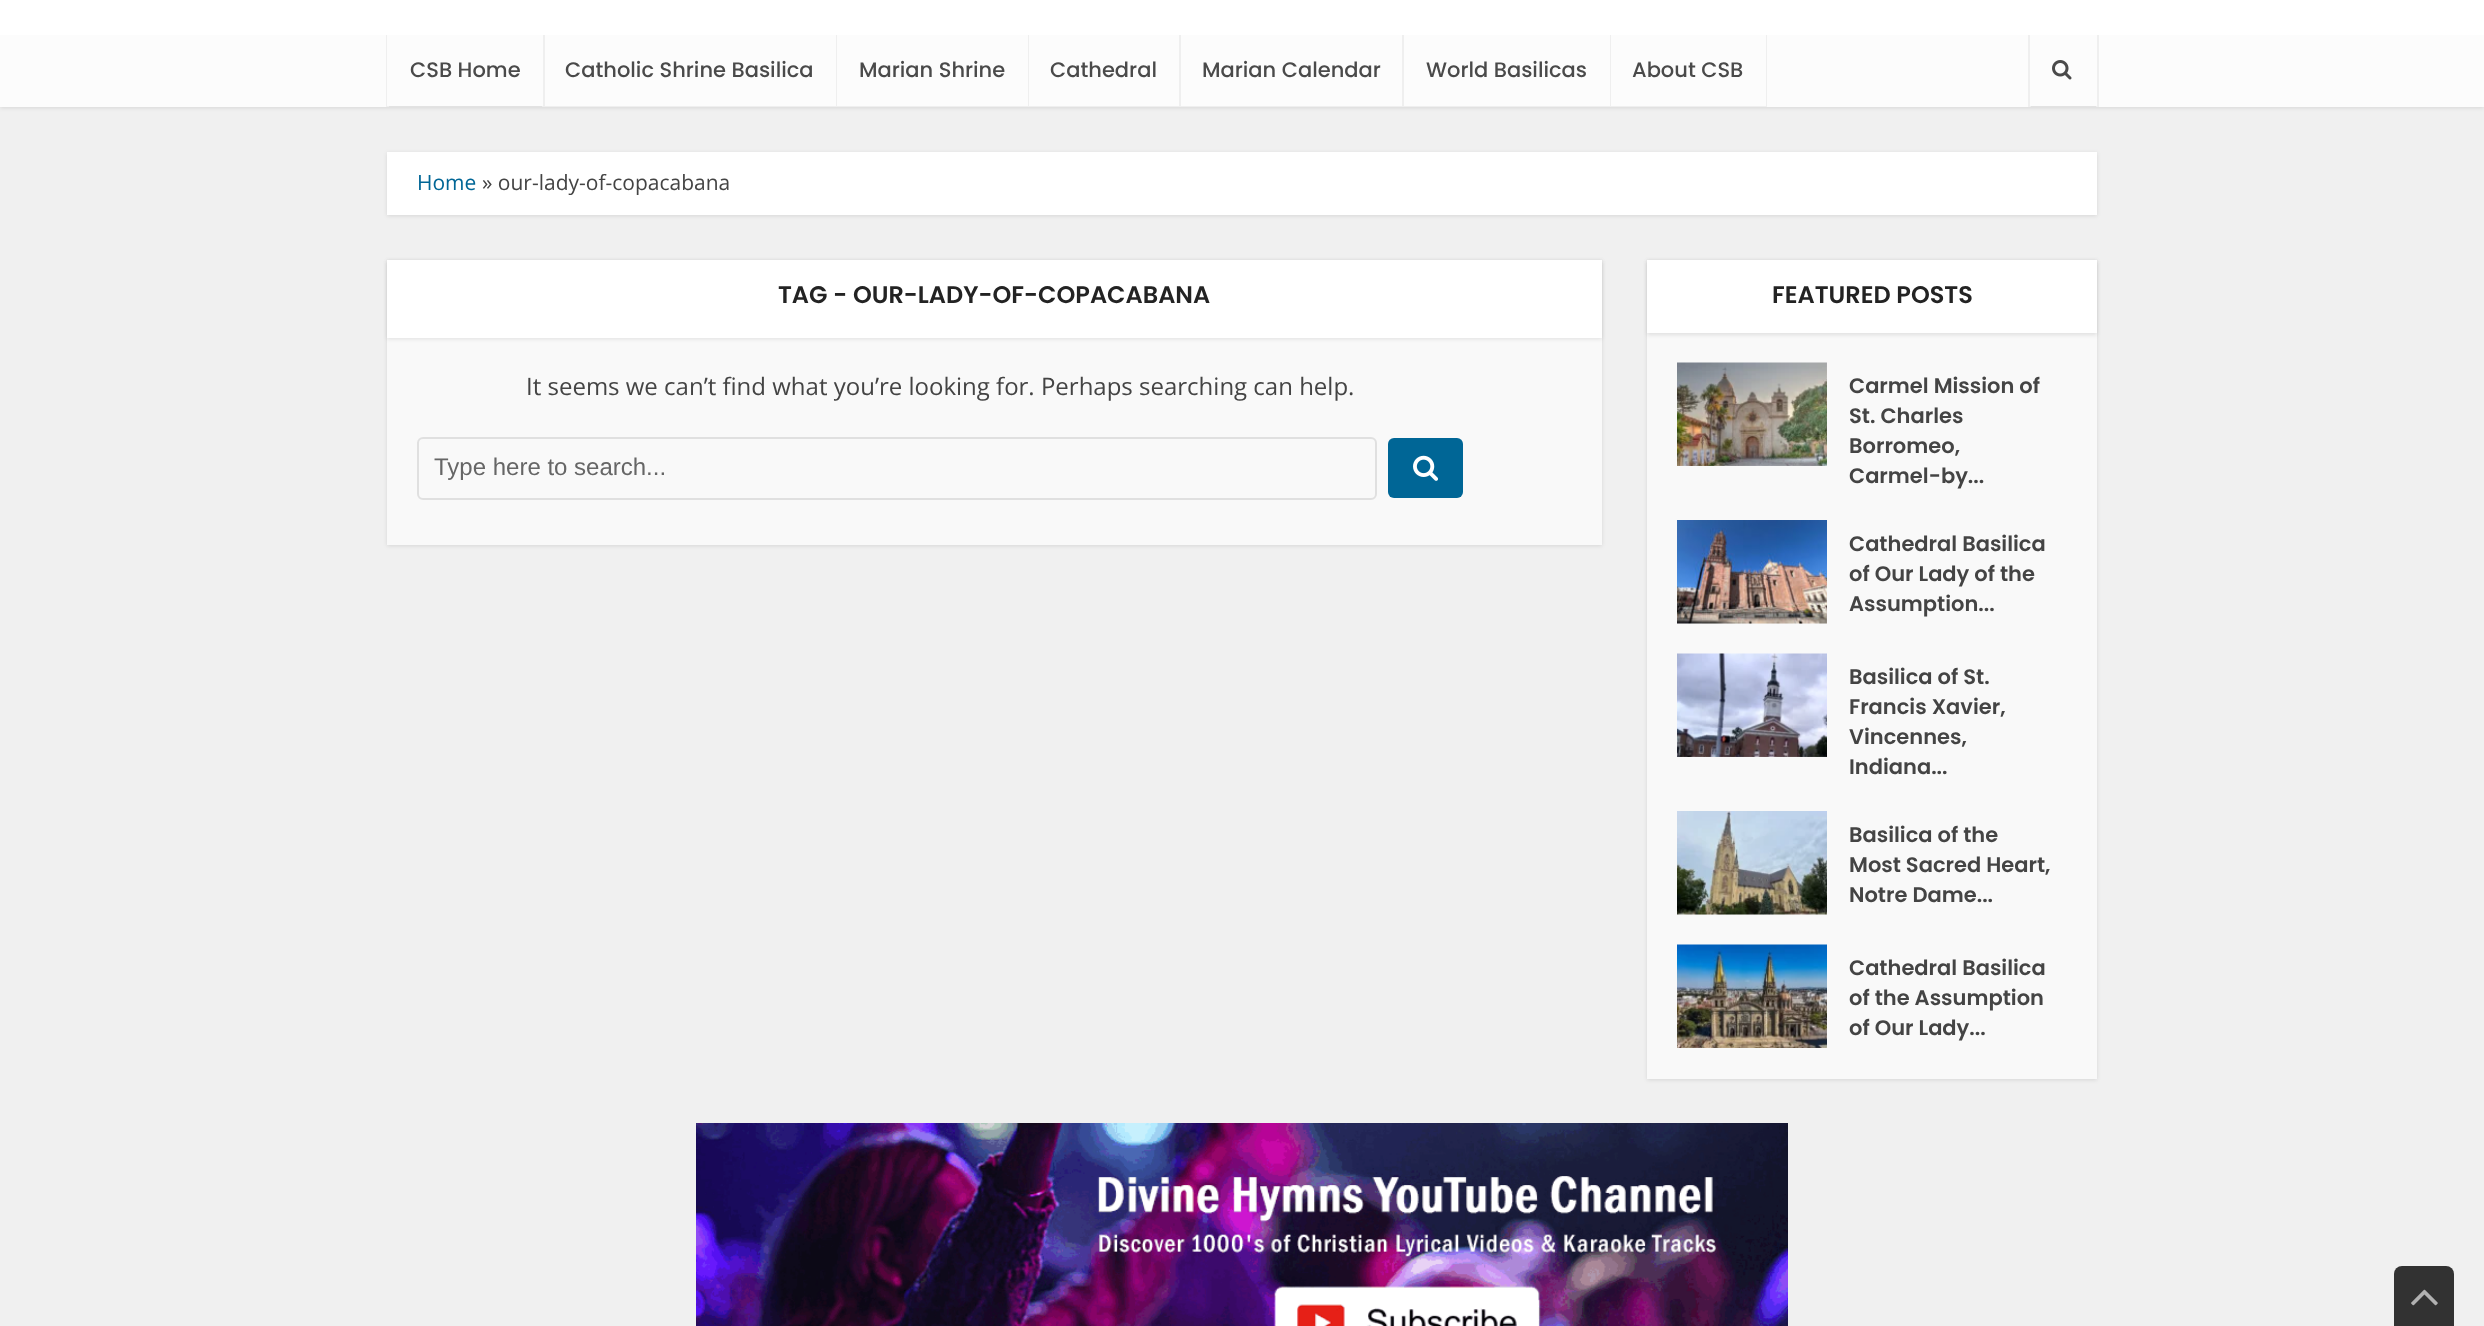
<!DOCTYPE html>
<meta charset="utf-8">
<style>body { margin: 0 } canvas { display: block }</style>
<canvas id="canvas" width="2484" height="1326"></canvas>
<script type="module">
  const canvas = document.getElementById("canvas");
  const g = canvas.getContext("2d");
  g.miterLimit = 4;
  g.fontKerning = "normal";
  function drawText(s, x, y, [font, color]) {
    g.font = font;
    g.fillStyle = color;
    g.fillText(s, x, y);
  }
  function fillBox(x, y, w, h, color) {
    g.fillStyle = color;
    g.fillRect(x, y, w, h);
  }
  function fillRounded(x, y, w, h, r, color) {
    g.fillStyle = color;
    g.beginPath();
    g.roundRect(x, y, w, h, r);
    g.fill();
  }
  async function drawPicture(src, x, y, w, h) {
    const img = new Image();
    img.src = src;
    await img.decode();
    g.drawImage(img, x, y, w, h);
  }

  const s1 = ["500 21px Poppins", "#4A4A4A"];
  const s2 = ["21px Open Sans", "#006696"];
  const s3 = ["21px Open Sans", "#444444"];
  const s4 = ["600 24px Poppins", "#232323"];
  const s5 = ["24px Open Sans", "#444444"];
  const s6 = ["24px Liberation Sans", "#666666"];
  const s7 = ["600 21px Poppins", "#444444"];

  fillBox(0, 0, 2484, 1326, "#F0F0F0");
  g.fillStyle = "rgba(0, 0, 0, 0.1)";
  g.filter = "blur(2px)";
  g.beginPath();
  g.rect(0, -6, 2484, 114);
  g.fill();
  g.filter = "none";
  fillBox(0, 0, 2484, 35, "#FFFFFF");
  fillBox(0, 35, 2484, 72, "#FCFCFC");
  g.fillStyle = "#EFEFEF";
  g.beginPath();
  g.moveTo(389, 106);
  g.lineTo(389, 107);
  g.lineTo(545, 107);
  g.lineTo(545, 35);
  g.lineTo(543, 35);
  g.lineTo(543, 106);
  g.closePath();
  g.fill();
  g.fillStyle = "rgba(0, 0, 0, 0.05)";
  g.beginPath();
  g.moveTo(386, 35);
  g.lineTo(386, 107);
  g.lineTo(542, 107);
  g.lineTo(542, 106);
  g.lineTo(387, 106);
  g.lineTo(387, 35);
  g.closePath();
  g.fill();
  drawText("CSB Home", 410, 77, s1);
  g.fillStyle = "#EFEFEF";
  g.beginPath();
  g.moveTo(545, 106);
  g.lineTo(545, 107);
  g.lineTo(837, 107);
  g.lineTo(837, 35);
  g.lineTo(836, 35);
  g.lineTo(836, 106);
  g.closePath();
  g.fill();
  drawText("Catholic Shrine Basilica", 565, 77, s1);
  g.fillStyle = "#EFEFEF";
  g.beginPath();
  g.moveTo(837, 106);
  g.lineTo(837, 107);
  g.lineTo(1029, 107);
  g.lineTo(1029, 35);
  g.lineTo(1028, 35);
  g.lineTo(1028, 106);
  g.closePath();
  g.fill();
  drawText("Marian Shrine", 859, 77, s1);
  g.fillStyle = "#EFEFEF";
  g.beginPath();
  g.moveTo(1029, 106);
  g.lineTo(1029, 107);
  g.lineTo(1181, 107);
  g.lineTo(1181, 35);
  g.lineTo(1179, 35);
  g.lineTo(1179, 106);
  g.closePath();
  g.fill();
  drawText("Cathedral", 1050, 77, s1);
  g.fillStyle = "#EFEFEF";
  g.beginPath();
  g.moveTo(1181, 106);
  g.lineTo(1181, 107);
  g.lineTo(1404, 107);
  g.lineTo(1404, 35);
  g.lineTo(1402, 35);
  g.lineTo(1402, 106);
  g.closePath();
  g.fill();
  drawText("Marian Calendar", 1202, 77, s1);
  g.fillStyle = "#EFEFEF";
  g.beginPath();
  g.moveTo(1404, 106);
  g.lineTo(1404, 107);
  g.lineTo(1611, 107);
  g.lineTo(1611, 35);
  g.lineTo(1610, 35);
  g.lineTo(1610, 106);
  g.closePath();
  g.fill();
  drawText("World Basilicas", 1426, 77, s1);
  g.fillStyle = "#EFEFEF";
  g.beginPath();
  g.moveTo(1611, 106);
  g.lineTo(1611, 107);
  g.lineTo(1767, 107);
  g.lineTo(1767, 35);
  g.lineTo(1766, 35);
  g.lineTo(1766, 106);
  g.closePath();
  g.fill();
  drawText("About CSB", 1632, 77, s1);
  g.fillStyle = "#EFEFEF";
  g.beginPath();
  g.moveTo(2031, 106);
  g.lineTo(2031, 107);
  g.lineTo(2099, 107);
  g.lineTo(2099, 35);
  g.lineTo(2097, 35);
  g.lineTo(2097, 106);
  g.closePath();
  g.fill();
  g.fillStyle = "rgba(0, 0, 0, 0.05)";
  g.beginPath();
  g.moveTo(2028, 35);
  g.lineTo(2028, 107);
  g.lineTo(2096, 107);
  g.lineTo(2096, 106);
  g.lineTo(2030, 106);
  g.lineTo(2030, 35);
  g.closePath();
  g.fill();
  await drawPicture("pic1.png", 2052, 60, 20, 20);
  g.fillStyle = "rgba(0, 0, 0, 0.1)";
  g.filter = "blur(2px)";
  g.beginPath();
  g.rect(387, 153, 1710, 63);
  g.fill();
  g.filter = "none";
  fillBox(387, 152, 1710, 63, "#FFFFFF");
  drawText("Home", 417, 190, s2);
  drawText("» our-lady-of-copacabana", 482, 190, s3);
  g.fillStyle = "rgba(0, 0, 0, 0.1)";
  g.filter = "blur(2px)";
  g.beginPath();
  g.rect(387, 261, 1215, 285);
  g.fill();
  g.filter = "none";
  fillBox(387, 338, 1215, 207, "#F9F9F9");
  g.fillStyle = "rgba(0, 0, 0, 0.1)";
  g.filter = "blur(2px)";
  g.beginPath();
  g.rect(387, 261, 1215, 78);
  g.fill();
  g.filter = "none";
  fillBox(387, 260, 1215, 78, "#FFFFFF");
  drawText("TAG - OUR-LADY-OF-COPACABANA", 778, 303, s4);
  drawText("It seems we can’t find what you’re looking for. Perhaps searching can help.", 526, 395, s5);
  g.beginPath();
  g.roundRect(418, 438, 958, 61, 5);
  g.strokeStyle = "#E0E0E0";
  g.lineWidth = 2;
  g.stroke();
  drawText("Type here to search...", 434, 475, s6);
  fillRounded(1388, 438, 75, 60, 6, "#006696");
  await drawPicture("pic2.png", 1413, 455, 25, 26);
  g.fillStyle = "rgba(0, 0, 0, 0.1)";
  g.filter = "blur(2px)";
  g.beginPath();
  g.rect(1647, 261, 450, 819);
  g.fill();
  g.filter = "none";
  fillBox(1647, 333, 450, 746, "#F9F9F9");
  g.fillStyle = "rgba(0, 0, 0, 0.1)";
  g.filter = "blur(2px)";
  g.beginPath();
  g.rect(1647, 261, 450, 74);
  g.fill();
  g.filter = "none";
  fillBox(1647, 260, 450, 73, "#FFFFFF");
  drawText("FEATURED POSTS", 1772, 303, s4);
  await drawPicture("pic3.png", 1677, 362, 150, 104);
  drawText("Carmel Mission of", 1849, 393, s7);
  drawText("St. Charles", 1849, 423, s7);
  drawText("Borromeo,", 1849, 453, s7);
  drawText("Carmel-by...", 1849, 483, s7);
  await drawPicture("pic4.png", 1677, 520, 150, 104);
  drawText("Cathedral Basilica", 1849, 551, s7);
  drawText("of Our Lady of the", 1849, 581, s7);
  drawText("Assumption...", 1849, 611, s7);
  await drawPicture("pic5.png", 1677, 653, 150, 104);
  drawText("Basilica of St.", 1849, 684, s7);
  drawText("Francis Xavier,", 1849, 714, s7);
  drawText("Vincennes,", 1849, 744, s7);
  drawText("Indiana...", 1849, 774, s7);
  await drawPicture("pic6.png", 1677, 811, 150, 104);
  drawText("Basilica of the", 1849, 842, s7);
  drawText("Most Sacred Heart,", 1849, 872, s7);
  drawText("Notre Dame...", 1849, 902, s7);
  await drawPicture("pic7.png", 1677, 944, 150, 104);
  drawText("Cathedral Basilica", 1849, 975, s7);
  drawText("of the Assumption", 1849, 1005, s7);
  drawText("of Our Lady...", 1849, 1035, s7);
  await drawPicture("pic8.png", 696, 1123, 1092, 203);
  g.fillStyle = "#323232";
  g.beginPath();
  g.roundRect(2394, 1266, 60, 60, [8, 8, 0, 0]);
  g.fill();
  await drawPicture("pic9.png", 2411, 1289, 27, 17);
</script>
